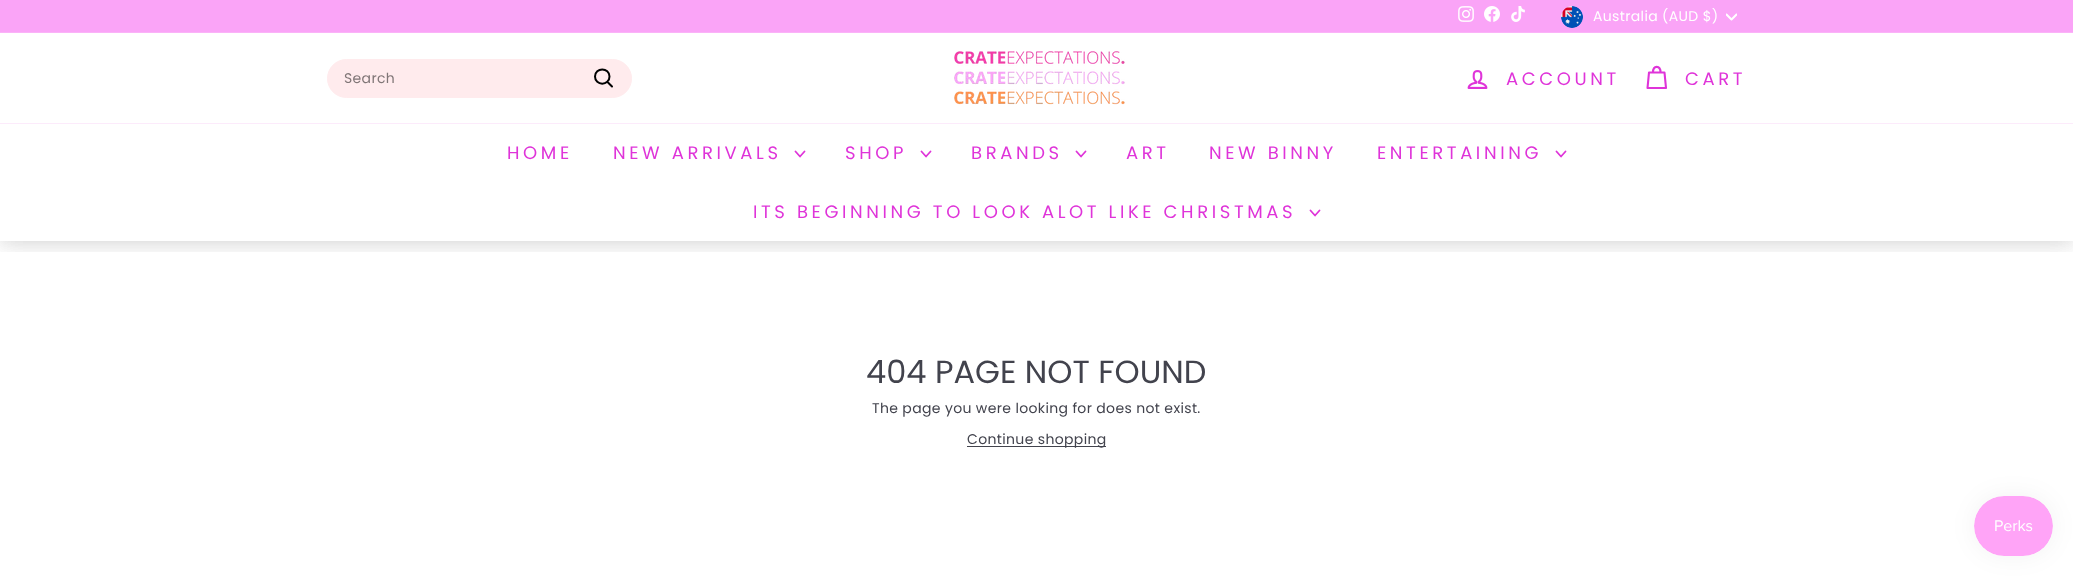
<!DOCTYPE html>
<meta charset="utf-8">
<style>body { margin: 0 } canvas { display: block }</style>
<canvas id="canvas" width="2073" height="576"></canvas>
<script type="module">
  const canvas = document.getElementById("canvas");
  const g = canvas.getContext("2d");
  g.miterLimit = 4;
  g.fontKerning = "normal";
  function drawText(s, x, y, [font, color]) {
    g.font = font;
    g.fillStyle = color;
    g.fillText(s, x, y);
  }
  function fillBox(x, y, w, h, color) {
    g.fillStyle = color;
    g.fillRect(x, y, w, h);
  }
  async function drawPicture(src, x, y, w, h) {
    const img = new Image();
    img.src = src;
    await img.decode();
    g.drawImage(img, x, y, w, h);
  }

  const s1 = ["14px Poppins", "#FFFFFF"];
  const s2 = ["14px Poppins", "#807677"];
  const s3 = ["18px Poppins", "#DF34D9"];
  const s4 = ["32px Poppins", "#42434D"];
  const s5 = ["14px Poppins", "#42434D"];

  fillBox(0, 0, 2073, 576, "#FFFFFF");
  g.save();
  g.beginPath();
  g.rect(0, 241, 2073, 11);
  g.clip();
  g.fillStyle = "rgba(0, 0, 0, 0.1)";
  g.filter = "blur(12.5px)";
  g.beginPath();
  g.rect(0, 33, 2073, 208);
  g.fill();
  g.filter = "none";
  g.restore();
  fillBox(0, 0, 2073, 32, "#FAA4F7");
  await drawPicture("pic1.png", 1458, 6, 16, 16);
  await drawPicture("pic2.png", 1484, 6, 16, 16);
  await drawPicture("pic3.png", 1511, 6, 14, 16);
  await drawPicture("pic4.png", 1561, 6, 22, 22);
  g.letterSpacing = "0.35px";
  drawText("Australia (AUD $)", 1593, 21, s1);
  g.save();
  g.beginPath();
  g.rect(1726, 12, 11, 11);
  g.clip();
  g.beginPath();
  g.moveTo(1726.5, 14.5);
  g.lineTo(1731.5, 19.5);
  g.lineTo(1736.5, 14.5);
  g.strokeStyle = "#FFFFFF";
  g.lineWidth = 2;
  g.lineCap = "round";
  g.lineJoin = "round";
  g.stroke();
  g.restore();
  fillBox(0, 32, 2073, 1, "#FBB2F8");
  g.save();
  g.beginPath();
  g.rect(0, 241, 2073, 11);
  g.clip();
  g.fillStyle = "rgba(0, 0, 0, 0.1)";
  g.filter = "blur(12.5px)";
  g.beginPath();
  g.rect(0, 123, 2073, 118);
  g.fill();
  g.filter = "none";
  g.restore();
  fillBox(0, 107, 2073, 16, "#FFFFFF");
  g.fillStyle = "#FFEBED";
  g.beginPath();
  g.roundRect(327.5, 59.5, 304, 38, 19);
  g.fill();
  g.strokeStyle = "#FFEBED";
  g.stroke();
  drawText("Search", 344, 83, s2);
  g.beginPath();
  g.moveTo(609.5, 76.5);
  g.bezierCurveTo(609.5, 86, 595, 86, 595, 76.5);
  g.bezierCurveTo(595, 67, 609.5, 67, 609.5, 76.5);
  g.closePath();
  g.moveTo(612, 86.5);
  g.lineTo(607.5, 82);
  g.strokeStyle = "#000000";
  g.lineWidth = 2;
  g.lineCap = "round";
  g.lineJoin = "round";
  g.stroke();
  await drawPicture("pic5.png", 954, 51, 171, 54);
  await drawPicture("pic6.png", 1467, 70, 21, 19);
  g.letterSpacing = "3.6px";
  drawText("ACCOUNT", 1506, 85, s3);
  g.beginPath();
  g.moveTo(1653, 72.5);
  g.bezierCurveTo(1653, 65, 1660.5, 65, 1660.5, 72.5);
  g.moveTo(1649, 72.5);
  g.lineTo(1664.5, 72.5);
  g.lineTo(1666, 88);
  g.lineTo(1647.5, 88);
  g.closePath();
  g.strokeStyle = "#DF34D9";
  g.lineWidth = 2.1;
  g.stroke();
  drawText("CART", 1685, 85, s3);
  fillBox(0, 123, 2073, 1, "#FCEBFB");
  drawText("HOME", 507, 159, s3);
  drawText("NEW ARRIVALS", 613, 159, s3);
  g.beginPath();
  g.moveTo(795.5, 151.5);
  g.lineTo(800, 156.5);
  g.lineTo(804.5, 151.5);
  g.lineWidth = 1.8;
  g.stroke();
  drawText("SHOP", 845, 159, s3);
  g.beginPath();
  g.moveTo(921.5, 151.5);
  g.lineTo(926, 156.5);
  g.lineTo(930.5, 151.5);
  g.stroke();
  drawText("BRANDS", 971, 159, s3);
  g.beginPath();
  g.moveTo(1076.5, 151.5);
  g.lineTo(1081, 156.5);
  g.lineTo(1085.5, 151.5);
  g.stroke();
  drawText("ART", 1126, 159, s3);
  drawText("NEW BINNY", 1209, 159, s3);
  drawText("ENTERTAINING", 1377, 159, s3);
  g.beginPath();
  g.moveTo(1556.5, 151.5);
  g.lineTo(1561, 156.5);
  g.lineTo(1565.5, 151.5);
  g.stroke();
  drawText("ITS BEGINNING TO LOOK ALOT LIKE CHRISTMAS", 753, 218, s3);
  g.beginPath();
  g.moveTo(1310.5, 210.5);
  g.lineTo(1315, 215.5);
  g.lineTo(1319.5, 210.5);
  g.stroke();
  g.letterSpacing = "0px";
  drawText("404 PAGE NOT FOUND", 866, 383, s4);
  g.letterSpacing = "0.35px";
  drawText("The page you were looking for does not exist.", 872, 413, s5);
  fillBox(967, 446, 139, 1, "#42434D");
  drawText("Continue shopping", 967, 444, s5);
  g.fillStyle = "rgba(0, 0, 0, 0.05)";
  g.filter = "blur(12.5px)";
  g.beginPath();
  g.roundRect(1974, 496, 79, 60, 30);
  g.fill();
  g.filter = "none";
  await drawPicture("pic7.png", 1974, 496, 79, 60);
</script>
